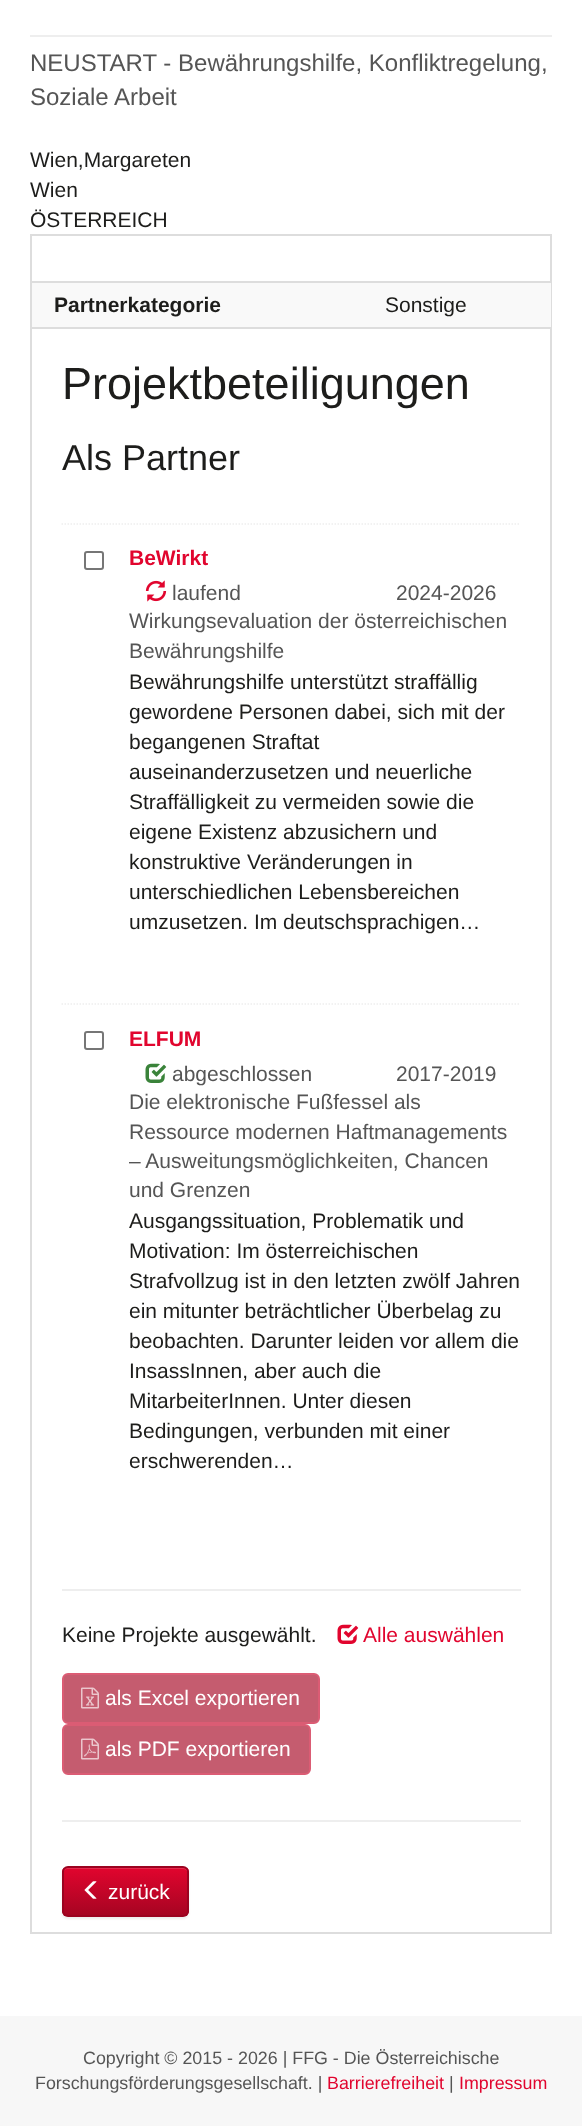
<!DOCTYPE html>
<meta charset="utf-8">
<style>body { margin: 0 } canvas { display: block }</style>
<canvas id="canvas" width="582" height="2126"></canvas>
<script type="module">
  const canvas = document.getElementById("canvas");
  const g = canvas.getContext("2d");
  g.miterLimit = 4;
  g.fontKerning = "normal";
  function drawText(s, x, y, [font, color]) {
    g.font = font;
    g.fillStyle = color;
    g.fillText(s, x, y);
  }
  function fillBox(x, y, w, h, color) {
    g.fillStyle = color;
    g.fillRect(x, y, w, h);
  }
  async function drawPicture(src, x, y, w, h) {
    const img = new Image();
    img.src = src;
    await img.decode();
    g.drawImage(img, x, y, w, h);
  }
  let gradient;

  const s1 = ["24px Liberation Sans", "#555555"];
  const s2 = ["21px Liberation Sans", "#1D1D1B"];
  const s3 = ["bold 21px Liberation Sans", "#1D1D1B"];
  const s4 = ["45px Liberation Sans", "#1D1D1B"];
  const s5 = ["36px Liberation Sans", "#1D1D1B"];
  const s6 = ["bold 21px Liberation Sans", "#E1052E"];
  const s7 = ["21px Liberation Sans", "#555555"];
  const s8 = ["21px Liberation Sans", "#E1052E"];
  const s9 = ["21px Liberation Sans", "#FFFFFF"];
  const s10 = ["17.85px Liberation Sans", "#555555"];
  const s11 = ["17.85px Liberation Sans", "#E1052E"];

  fillBox(0, 0, 582, 2126, "#FFFFFF");
  fillBox(30, 35, 522, 2, "#EEEEEE");
  drawText("NEUSTART - Bewährungshilfe, Konfliktregelung,", 30, 71, s1);
  drawText("Soziale Arbeit", 30, 105, s1);
  drawText("Wien,Margareten", 30, 167, s2);
  drawText("Wien", 30, 197, s2);
  drawText("ÖSTERREICH", 30, 227, s2);
  g.strokeStyle = "#DDDDDD";
  g.lineWidth = 2;
  g.strokeRect(31, 235, 520, 1698);
  fillBox(32, 281, 519, 2, "#DDDDDD");
  fillBox(32, 327, 519, 2, "#DDDDDD");
  fillBox(32, 283, 519, 44, "#F9F9F9");
  drawText("Partnerkategorie", 54, 312, s3);
  drawText("Sonstige", 385, 312, s2);
  drawText("Projektbeteiligungen", 62, 399, s4);
  drawText("Als Partner", 62, 470, s5);
  fillBox(62, 1820, 459, 2, "#EEEEEE");
  g.beginPath();
  g.moveTo(61.5, 524);
  g.lineTo(520.5, 524);
  g.strokeStyle = "#EEEEEE";
  g.lineWidth = 1.5;
  g.setLineDash([1.5, 1.5]);
  g.stroke();
  g.beginPath();
  g.roundRect(85, 552, 18, 17, 2);
  g.strokeStyle = "#767676";
  g.lineWidth = 2;
  g.setLineDash([]);
  g.stroke();
  drawText("BeWirkt", 129, 565, s6);
  await drawPicture("pic1.png", 145, 580, 22, 22);
  drawText("laufend", 172, 600, s7);
  drawText("2024-2026", 396, 600, s7);
  drawText("Wirkungsevaluation der österreichischen", 129, 628, s7);
  drawText("Bewährungshilfe", 129, 658, s7);
  drawText("Bewährungshilfe unterstützt straffällig", 129, 689, s2);
  drawText("gewordene Personen dabei, sich mit der", 129, 719, s2);
  drawText("begangenen Straftat", 129, 749, s2);
  drawText("auseinanderzusetzen und neuerliche", 129, 779, s2);
  drawText("Straffälligkeit zu vermeiden sowie die", 129, 809, s2);
  drawText("eigene Existenz abzusichern und", 129, 839, s2);
  drawText("konstruktive Veränderungen in", 129, 869, s2);
  drawText("unterschiedlichen Lebensbereichen", 129, 899, s2);
  drawText("umzusetzen. Im deutschsprachigen…", 129, 929, s2);
  g.beginPath();
  g.moveTo(61.5, 1004);
  g.lineTo(520.5, 1004);
  g.strokeStyle = "#EEEEEE";
  g.lineWidth = 1.5;
  g.setLineDash([1.5, 1.5]);
  g.stroke();
  g.beginPath();
  g.roundRect(85, 1032, 18, 17, 2);
  g.strokeStyle = "#767676";
  g.lineWidth = 2;
  g.setLineDash([]);
  g.stroke();
  drawText("ELFUM", 129, 1046, s6);
  await drawPicture("pic2.png", 145, 1063, 22, 20);
  drawText("abgeschlossen", 172, 1081, s7);
  drawText("2017-2019", 396, 1081, s7);
  drawText("Die elektronische Fußfessel als", 129, 1109, s7);
  drawText("Ressource modernen Haftmanagements", 129, 1139, s7);
  drawText("– Ausweitungsmöglichkeiten, Chancen", 129, 1168, s7);
  drawText("und Grenzen", 129, 1197, s7);
  drawText("Ausgangssituation, Problematik und", 129, 1228, s2);
  drawText("Motivation: Im österreichischen", 129, 1258, s2);
  drawText("Strafvollzug ist in den letzten zwölf Jahren", 129, 1288, s2);
  drawText("ein mitunter beträchtlicher Überbelag zu", 129, 1318, s2);
  drawText("beobachten. Darunter leiden vor allem die", 129, 1348, s2);
  drawText("InsassInnen, aber auch die", 129, 1378, s2);
  drawText("MitarbeiterInnen. Unter diesen", 129, 1408, s2);
  drawText("Bedingungen, verbunden mit einer", 129, 1438, s2);
  drawText("erschwerenden…", 129, 1468, s2);
  fillBox(62, 1589, 459, 2, "#EEEEEE");
  drawText("Keine Projekte ausgewählt.", 62, 1642, s2);
  await drawPicture("pic3.png", 337, 1624, 22, 20);
  drawText("Alle auswählen", 363, 1642, s8);
  g.fillStyle = "#C55C6F";
  g.beginPath();
  g.roundRect(63, 1674, 256, 49, 5);
  g.fill();
  g.strokeStyle = "#DB5C74";
  g.stroke();
  await drawPicture("pic4.png", 81, 1687, 18, 22);
  drawText("als Excel exportieren", 105, 1705, s9);
  g.fillStyle = "#C55C6F";
  g.beginPath();
  g.roundRect(63, 1725, 247, 49, 5);
  g.fill();
  g.stroke();
  await drawPicture("pic5.png", 81, 1738, 18, 22);
  drawText("als PDF exportieren", 105, 1756, s9);
  g.fillStyle = "rgba(0, 0, 0, 0.07)";
  g.filter = "blur(1px)";
  g.beginPath();
  g.roundRect(62, 1868, 127, 51, 6);
  g.fill();
  g.filter = "none";
  g.save();
  g.beginPath();
  g.roundRect(62, 1866, 127, 51, 6);
  g.clip();
  gradient = g.createLinearGradient(125, 1868, 125, 1916);
  gradient.addColorStop(0, "#E1052E");
  gradient.addColorStop(1, "#A50422");
  g.fillStyle = gradient;
  g.fillRect(62, 1868, 127, 48);
  g.restore();
  g.fillStyle = "rgba(255, 255, 255, 0.15)";
  g.beginPath();
  g.moveTo(68, 1869);
  g.lineTo(183, 1869);
  g.bezierCurveTo(185, 1869, 188, 1871, 188, 1874);
  g.bezierCurveTo(188, 1863, 168, 1868, 164, 1868);
  g.lineTo(87, 1868);
  g.bezierCurveTo(83, 1868, 63, 1863, 63, 1874);
  g.bezierCurveTo(63, 1871, 65, 1869, 68, 1869);
  g.closePath();
  g.fill();
  g.beginPath();
  g.roundRect(63, 1867, 125, 49, 5);
  g.strokeStyle = "#9B0320";
  g.stroke();
  await drawPicture("pic6.png", 84, 1881, 13, 18);
  drawText("zurück", 108, 1899, s9);
  fillBox(0, 2016, 582, 110, "#F7F7F7");
  drawText("Copyright © 2015 - 2026 | FFG - Die Österreichische", 83, 2064, s10);
  drawText("Forschungsförderungsgesellschaft. |", 35, 2089, s10);
  drawText("Barrierefreiheit", 327, 2089, s11);
  drawText("|", 449, 2089, s10);
  drawText("Impressum", 459, 2089, s11);
</script>
